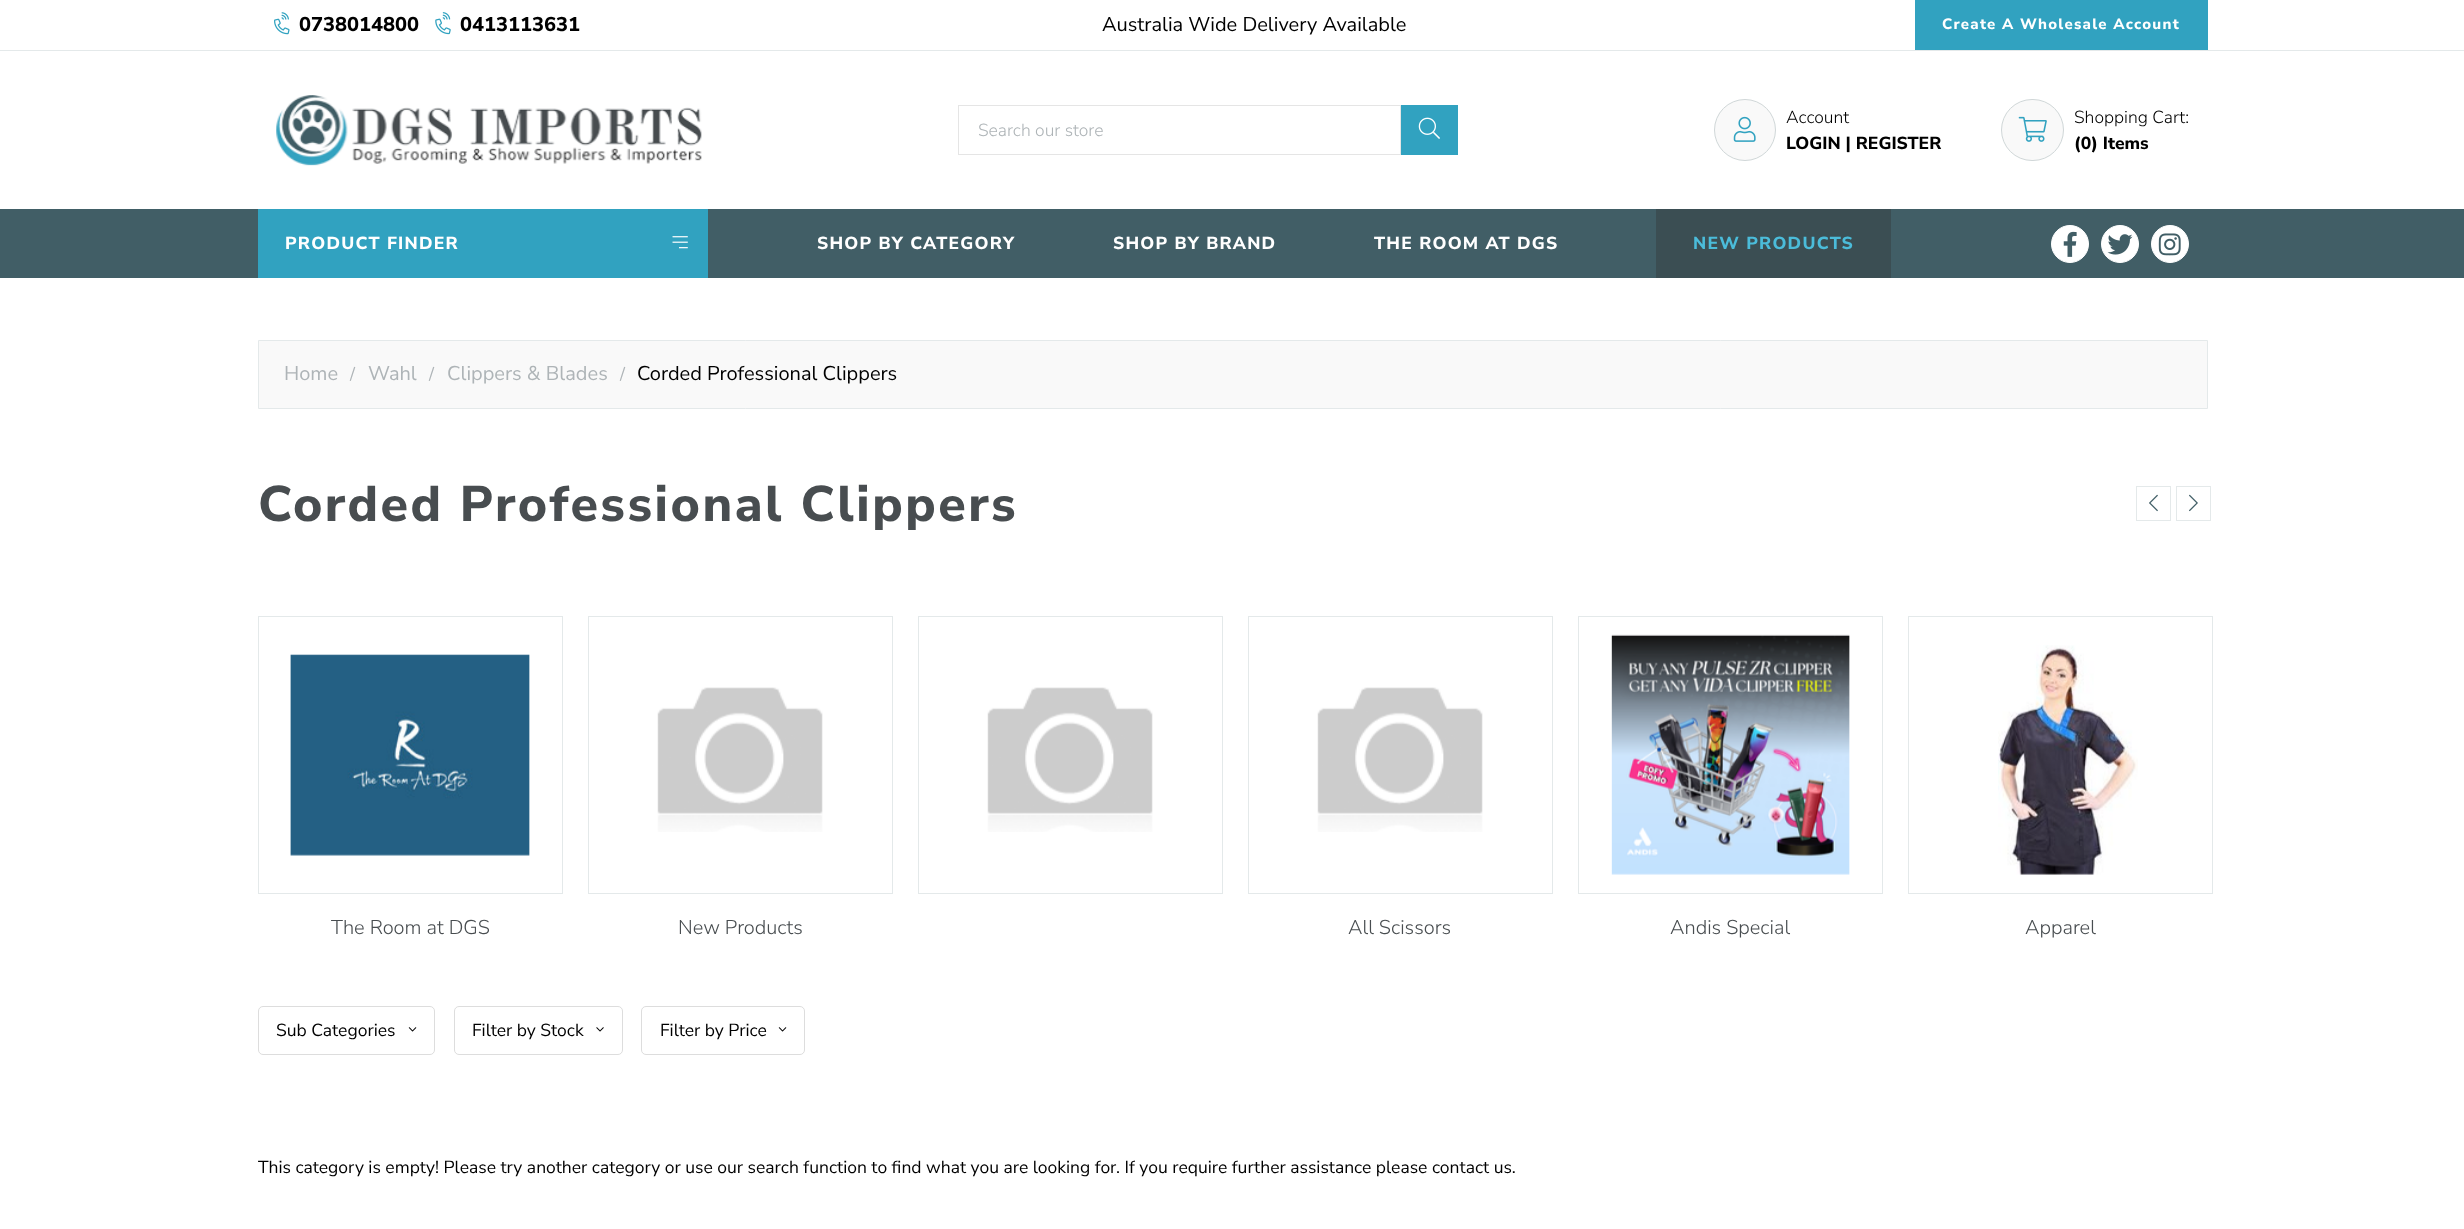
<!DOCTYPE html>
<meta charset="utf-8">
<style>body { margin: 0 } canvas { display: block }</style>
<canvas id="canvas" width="2464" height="1229"></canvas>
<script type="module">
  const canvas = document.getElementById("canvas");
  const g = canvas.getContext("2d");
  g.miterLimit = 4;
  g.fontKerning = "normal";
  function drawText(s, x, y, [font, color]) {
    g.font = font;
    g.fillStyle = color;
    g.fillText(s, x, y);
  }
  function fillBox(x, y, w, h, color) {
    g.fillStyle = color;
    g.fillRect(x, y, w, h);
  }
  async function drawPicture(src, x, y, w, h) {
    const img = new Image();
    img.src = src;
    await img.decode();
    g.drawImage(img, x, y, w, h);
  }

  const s1 = ["800 20px Nunito Sans", "#000000"];
  const s2 = ["20px Nunito Sans", "#000000"];
  const s3 = ["800 15px Nunito Sans", "#FFFFFF"];
  const s4 = ["300 17.5px Nunito Sans", "#AEB4B7"];
  const s5 = ["300 17.5px Nunito Sans", "#000000"];
  const s6 = ["800 17.5px Nunito Sans", "#000000"];
  const s7 = ["800 17.5px Nunito Sans", "#FFFFFF"];
  const s8 = ["800 17.5px Nunito Sans", "#4BBCDA"];
  const s9 = ["20px Nunito Sans", "#AEB4B7"];
  const s10 = ["17.5px Nunito Sans", "#AEB4B7"];
  const s11 = ["800 50px Nunito Sans", "#484D50"];
  const s12 = ["300 20px Nunito Sans", "#484D50"];
  const s13 = ["17.5px Nunito Sans", "#000000"];

  fillBox(0, 0, 2464, 1229, "#FFFFFF");
  fillBox(0, 50, 2464, 1, "#E4E9EA");
  await drawPicture("pic1.png", 274, 12, 16, 23);
  drawText("0738014800", 299, 31, s1);
  await drawPicture("pic2.png", 435, 12, 16, 23);
  drawText("0413113631", 460, 31, s1);
  drawText("Australia Wide Delivery Available", 1102, 31, s2);
  fillBox(1915, 0, 293, 50, "#31A2C0");
  g.letterSpacing = "1.25px";
  drawText("Create A Wholesale Account", 1942, 29, s3);
  await drawPicture("pic3.png", 276, 95, 426, 71);
  g.strokeStyle = "#E5E5E5";
  g.strokeRect(958.5, 105.5, 442, 49);
  g.letterSpacing = "0px";
  drawText("Search our store", 978, 136, s4);
  fillBox(1401, 105, 57, 50, "#31A2C0");
  await drawPicture("pic4.png", 1418, 117, 22, 22);
  g.fillStyle = "#F9F9F9";
  g.beginPath();
  g.arc(1745, 130, 30.5, 0, Math.PI * 2);
  g.fill();
  g.strokeStyle = "#D0D7D8";
  g.stroke();
  await drawPicture("pic5.png", 1733, 116, 23, 26);
  drawText("Account", 1786, 123, s5);
  drawText("LOGIN | REGISTER", 1786, 149, s6);
  g.fillStyle = "#F9F9F9";
  g.beginPath();
  g.roundRect(2001.5, 99.5, 62, 61, 30.5);
  g.fill();
  g.stroke();
  await drawPicture("pic6.png", 2018, 116, 29, 26);
  drawText("Shopping Cart:", 2074, 123, s5);
  drawText("(0) Items", 2074, 149, s6);
  fillBox(0, 209, 2464, 69, "#415E66");
  fillBox(258, 209, 450, 69, "#31A2C0");
  g.letterSpacing = "1.25px";
  drawText("PRODUCT FINDER", 285, 249, s7);
  await drawPicture("pic7.png", 672, 236, 16, 13);
  fillBox(668, 247, 11, 2, "#31A2C0");
  drawText("SHOP BY CATEGORY", 817, 249, s7);
  drawText("SHOP BY BRAND", 1113, 249, s7);
  drawText("THE ROOM AT DGS", 1374, 249, s7);
  fillBox(1656, 209, 235, 69, "#3B4E53");
  drawText("NEW PRODUCTS", 1693, 249, s8);
  g.fillStyle = "#FFFFFF";
  g.beginPath();
  g.arc(2070, 244, 18.5, 0, Math.PI * 2);
  g.fill();
  g.strokeStyle = "#FFFFFF";
  g.stroke();
  await drawPicture("pic8.png", 2063, 231, 14, 26);
  g.beginPath();
  g.arc(2120, 244, 18.5, 0, Math.PI * 2);
  g.fill();
  g.stroke();
  await drawPicture("pic9.png", 2107, 234, 26, 21);
  g.beginPath();
  g.arc(2170, 244, 18.5, 0, Math.PI * 2);
  g.fill();
  g.stroke();
  await drawPicture("pic10.png", 2158, 233, 23, 23);
  g.fillStyle = "#F9F9F9";
  g.beginPath();
  g.rect(258.5, 340.5, 1949, 68);
  g.fill();
  g.strokeStyle = "#E4E9EA";
  g.stroke();
  g.letterSpacing = "0px";
  drawText("Home", 284, 380, s9);
  drawText("/", 350, 380, s10);
  drawText("Wahl", 368, 380, s9);
  drawText("/", 429, 380, s10);
  drawText("Clippers & Blades", 447, 380, s9);
  drawText("/", 620, 380, s10);
  drawText("Corded Professional Clippers", 637, 380, s2);
  g.letterSpacing = "2.5px";
  drawText("Corded Professional Clippers", 258, 521, s11);
  g.strokeRect(2136.5, 486.5, 34, 34);
  await drawPicture("pic11.png", 2149, 494, 9, 18);
  g.strokeRect(2176.5, 486.5, 34, 34);
  await drawPicture("pic12.png", 2189, 494, 9, 18);
  g.strokeRect(918.5, 616.5, 304, 277);
  await drawPicture("pic13.png", 987, 687, 166, 145);
  g.strokeRect(258.5, 616.5, 304, 277);
  await drawPicture("pic14.png", 290, 654, 240, 202);
  g.letterSpacing = "0px";
  drawText("The Room at DGS", 331, 934, s12);
  g.strokeRect(588.5, 616.5, 304, 277);
  await drawPicture("pic13.png", 657, 687, 166, 145);
  drawText("New Products", 678, 934, s12);
  g.strokeRect(1248.5, 616.5, 304, 277);
  await drawPicture("pic13.png", 1317, 687, 166, 145);
  drawText("All Scissors", 1348, 934, s12);
  g.strokeRect(1578.5, 616.5, 304, 277);
  await drawPicture("pic15.png", 1611, 634, 239, 241);
  drawText("Andis Special", 1670, 934, s12);
  g.strokeRect(1908.5, 616.5, 304, 277);
  await drawPicture("pic16.png", 1998, 645, 140, 230);
  drawText("Apparel", 2025, 934, s12);
  g.beginPath();
  g.roundRect(258.5, 1006.5, 176, 48, 4.5);
  g.strokeStyle = "#DDDDDD";
  g.stroke();
  drawText("Sub Categories", 276, 1036, s13);
  await drawPicture("pic17.png", 408, 1027, 9, 5);
  g.beginPath();
  g.roundRect(454.5, 1006.5, 168, 48, 4.5);
  g.stroke();
  drawText("Filter by Stock", 472, 1036, s13);
  await drawPicture("pic18.png", 596, 1027, 8, 5);
  g.beginPath();
  g.roundRect(641.5, 1006.5, 163, 48, 4.5);
  g.stroke();
  drawText("Filter by Price", 660, 1036, s13);
  await drawPicture("pic17.png", 778, 1027, 9, 5);
  drawText("This category is empty! Please try another category or use our search function to find what you are looking for. If you require further assistance please contact us.", 258, 1173, s13);
</script>
